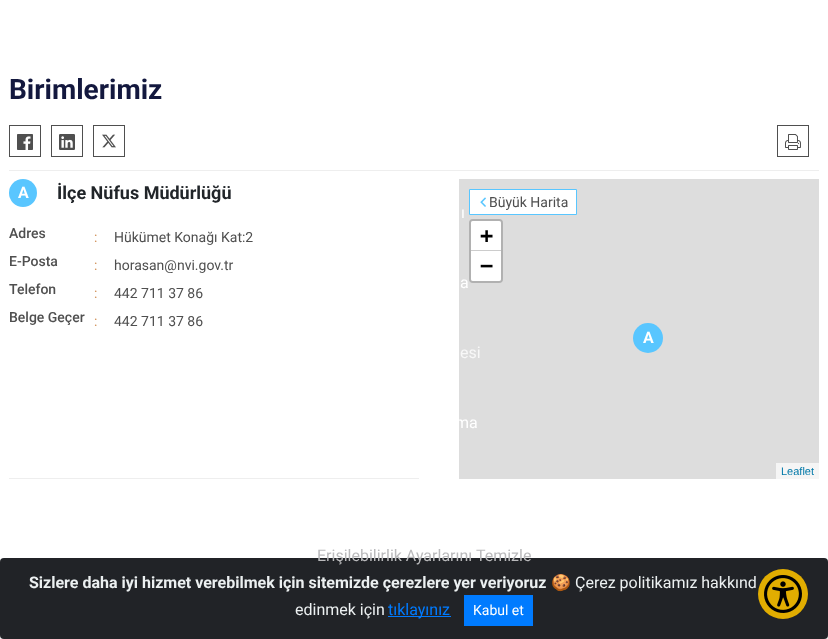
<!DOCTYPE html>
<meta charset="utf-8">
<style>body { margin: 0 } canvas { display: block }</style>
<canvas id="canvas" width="828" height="639"></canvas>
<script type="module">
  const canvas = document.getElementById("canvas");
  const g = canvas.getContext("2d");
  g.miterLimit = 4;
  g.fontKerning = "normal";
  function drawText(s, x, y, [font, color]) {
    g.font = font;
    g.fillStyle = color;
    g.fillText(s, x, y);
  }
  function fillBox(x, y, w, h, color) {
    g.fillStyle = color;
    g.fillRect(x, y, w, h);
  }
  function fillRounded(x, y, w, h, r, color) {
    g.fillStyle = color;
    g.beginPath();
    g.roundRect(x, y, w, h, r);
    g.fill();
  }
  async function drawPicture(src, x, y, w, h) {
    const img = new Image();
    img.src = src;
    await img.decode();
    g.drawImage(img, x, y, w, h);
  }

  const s1 = ["bold 28px Roboto", "#13183E"];
  const s2 = ["bold 16px Roboto", "#FFFFFF"];
  const s3 = ["bold 18px Roboto", "#212529"];
  const s4 = ["500 14px Roboto", "#4F4F4F"];
  const s5 = ["14px Roboto", "#D2935B"];
  const s6 = ["14px Roboto", "#4F4F4F"];
  const s7 = ["bold 22px DejaVu Sans Mono", "#000000"];
  const s8 = ["11px Liberation Sans", "#0078A8"];
  const s9 = ["16px Roboto", "#FFFFFF"];
  const s10 = ["16px Roboto", "#F8F8F8"];
  const s11 = ["16px Roboto", "#BABABC"];
  const s12 = ["bold 16px Roboto", "#ECF0F1"];
  const s13 = ["16px Noto Color Emoji", "#ECF0F1"];
  const s14 = ["16px Roboto", "#ECF0F1"];
  const s15 = ["16px Roboto", "#007BFF"];
  const s16 = ["14px Roboto", "#FFFFFF"];

  fillBox(0, 0, 828, 639, "#FFFFFF");
  fillBox(9, 170, 810, 1, "#EEEEEE");
  drawText("Birimlerimiz", 9, 99, s1);
  g.strokeStyle = "#4F4F4F";
  g.strokeRect(9.5, 125.5, 31, 31);
  await drawPicture("pic1.png", 17, 134, 16, 16);
  g.strokeRect(51.5, 125.5, 31, 31);
  await drawPicture("pic2.png", 59, 134, 16, 16);
  g.strokeRect(93.5, 125.5, 31, 31);
  await drawPicture("pic3.png", 102, 134, 14, 14);
  g.strokeRect(777.5, 125.5, 31, 31);
  await drawPicture("pic4.png", 785, 134, 16, 16);
  fillBox(9, 478, 410, 1, "#EEEEEE");
  g.fillStyle = "#59C6FF";
  g.beginPath();
  g.arc(23, 193, 14, 0, Math.PI * 2);
  g.fill();
  drawText("A", 18, 198, s2);
  drawText("İlçe Nüfus Müdürlüğü", 57, 199, s3);
  drawText("Adres", 9, 238, s4);
  drawText(":", 94, 242, s5);
  drawText("Hükümet Konağı Kat:2", 114, 242, s6);
  drawText("E-Posta", 9, 266, s4);
  drawText(":", 94, 270, s5);
  drawText("horasan@nvi.gov.tr", 114, 270, s6);
  drawText("Telefon", 9, 294, s4);
  drawText(":", 94, 298, s5);
  drawText("442 711 37 86", 114, 298, s6);
  drawText("Belge Geçer", 9, 322, s4);
  drawText(":", 94, 326, s5);
  drawText("442 711 37 86", 114, 326, s6);
  fillBox(459, 179, 360, 300, "#DDDDDD");
  g.fillStyle = "#FFFFFF";
  g.beginPath();
  g.rect(469.5, 189.5, 107, 25);
  g.fill();
  g.strokeStyle = "#59C6FF";
  g.stroke();
  await drawPicture("pic5.png", 480, 197, 6, 10);
  drawText("Büyük Harita", 489, 207, s6);
  g.beginPath();
  g.roundRect(470, 220, 32, 62, 3);
  g.strokeStyle = "#B1B1B1";
  g.lineWidth = 2;
  g.stroke();
  g.fillStyle = "#FFFFFF";
  g.beginPath();
  g.roundRect(471, 221, 30, 30, [2, 2, 0, 0]);
  g.fill();
  fillBox(471, 250, 30, 1, "#CCCCCC");
  drawText("+", 480, 243, s7);
  g.fillStyle = "#FFFFFF";
  g.beginPath();
  g.roundRect(471, 251, 30, 30, [0, 0, 2, 2]);
  g.fill();
  drawText("−", 480, 273, s7);
  fillBox(776, 463, 43, 16, "#F5F5F5");
  drawText("Leaflet", 781, 475, s8);
  g.fillStyle = "#59C6FF";
  g.beginPath();
  g.arc(648, 338, 15, 0, Math.PI * 2);
  g.fill();
  drawText("A", 643, 343, s2);
  fillBox(0, 635, 828, 4, "#EEEEEE");
  drawText("ı", 461, 218, s9);
  drawText("a", 460, 288, s9);
  drawText("esi", 460, 358, s10);
  drawText("ma", 455, 428, s9);
  fillRounded(0, 558, 828, 81, 4, "#212327");
  drawText("Erişilebilirlik Ayarlarını Temizle", 317, 561, s11);
  g.fillStyle = "#E1AD01";
  g.beginPath();
  g.arc(783, 594, 25, 0, Math.PI * 2);
  g.fill();
  await drawPicture("pic6.png", 764, 575, 38, 38);
  drawText("Sizlere daha iyi hizmet verebilmek için sitemizde çerezlere yer veriyoruz", 29, 588, s12);
  drawText("🍪", 551, 588, s13);
  drawText("Çerez politikamız hakkınd", 575, 588, s14);
  drawText("edinmek için", 295, 615, s14);
  fillBox(388, 616, 63, 1, "#007BFF");
  drawText("tıklayınız", 388, 615, s15);
  fillBox(464, 595, 69, 31, "#007BFF");
  drawText("Kabul et", 473, 615, s16);
</script>
